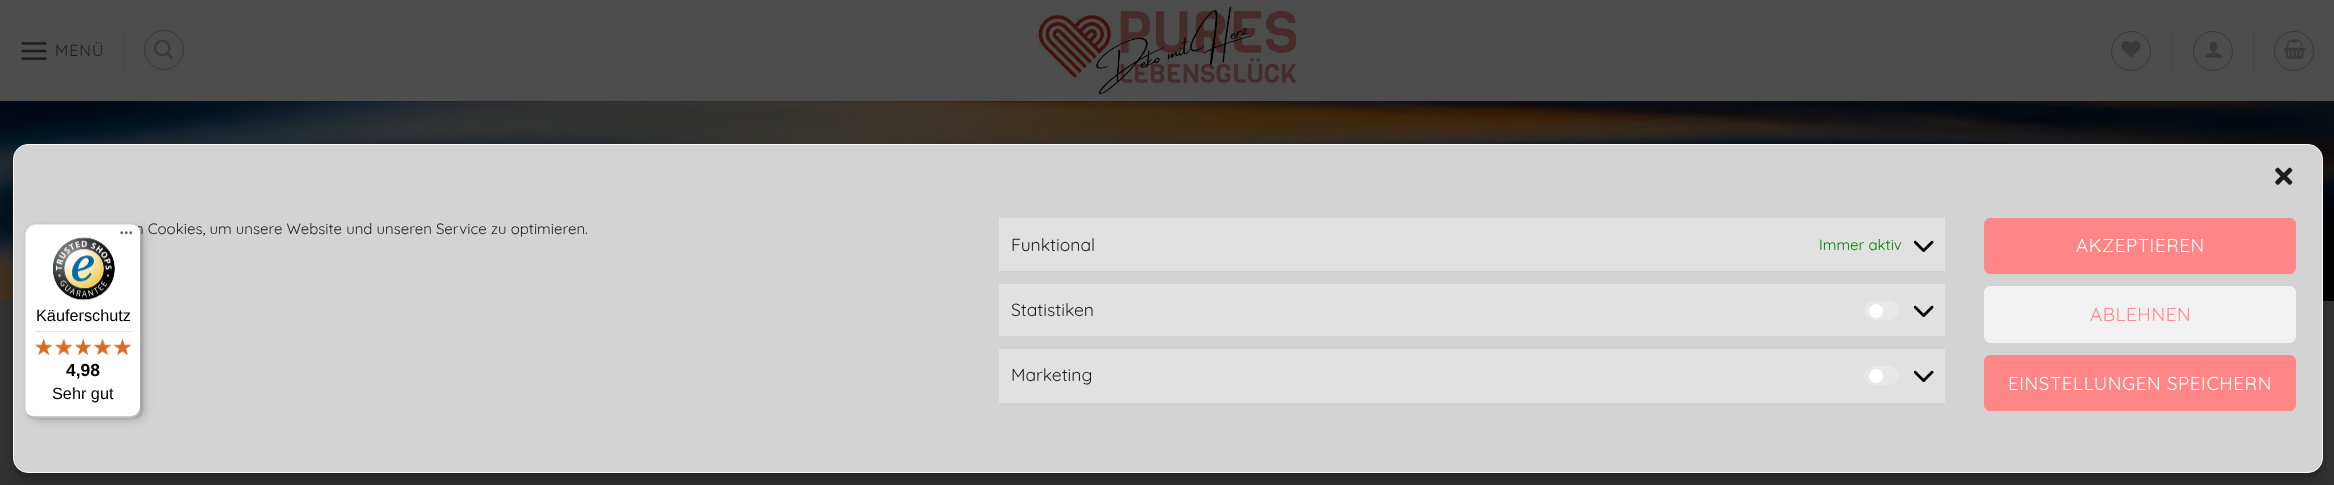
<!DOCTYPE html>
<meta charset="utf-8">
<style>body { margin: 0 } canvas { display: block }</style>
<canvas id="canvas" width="2334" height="485"></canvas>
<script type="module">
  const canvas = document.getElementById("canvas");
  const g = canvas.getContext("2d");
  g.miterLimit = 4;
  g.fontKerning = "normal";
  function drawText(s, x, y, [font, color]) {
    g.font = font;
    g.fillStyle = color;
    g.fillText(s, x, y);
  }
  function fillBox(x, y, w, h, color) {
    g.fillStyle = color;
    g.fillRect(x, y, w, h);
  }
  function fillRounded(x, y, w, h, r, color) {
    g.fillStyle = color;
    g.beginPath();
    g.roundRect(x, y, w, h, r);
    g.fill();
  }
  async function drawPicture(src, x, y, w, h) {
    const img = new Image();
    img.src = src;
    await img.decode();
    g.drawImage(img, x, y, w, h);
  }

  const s1 = ["16px Quicksand", "#1E1E1E"];
  const s2 = ["15px Quicksand", "#1E1E1E"];
  const s3 = ["16.25px Liberation Sans", "#000000"];
  const s4 = ["bold 17.5px Liberation Sans", "#000000"];
  const s5 = ["17.5px Quicksand", "#1E1E1E"];
  const s6 = ["15px Quicksand", "#008000"];
  const s7 = ["18.75px Quicksand", "#FFFFFF"];
  const s8 = ["18.75px Quicksand", "#FF8686"];

  fillBox(0, 0, 2334, 485, "#313131");
  fillBox(0, 0, 2334, 101, "#4D4D4D");
  await drawPicture("pic1.png", 21, 42, 26, 18);
  g.letterSpacing = "1px";
  drawText("MENÜ", 55, 56, s1);
  fillBox(123, 31, 1, 38, "#454545");
  g.beginPath();
  g.arc(164, 50, 19.5, 0, Math.PI * 2);
  g.strokeStyle = "#3A3A3A";
  g.stroke();
  await drawPicture("pic2.png", 153, 39, 20, 20);
  await drawPicture("pic3.png", 1038, 6, 258, 89);
  g.beginPath();
  g.arc(2131, 51, 19.5, 0, Math.PI * 2);
  g.stroke();
  await drawPicture("pic4.png", 2121, 41, 20, 17);
  fillBox(2171, 33, 1, 37, "#454545");
  g.beginPath();
  g.arc(2213, 51, 19.5, 0, Math.PI * 2);
  g.stroke();
  await drawPicture("pic5.png", 2205, 41, 17, 17);
  fillBox(2253, 33, 1, 37, "#454545");
  g.beginPath();
  g.arc(2294, 51, 19.5, 0, Math.PI * 2);
  g.stroke();
  await drawPicture("pic6.png", 2283, 39, 23, 20);
  await drawPicture("pic7.png", 0, 101, 2334, 200);
  fillBox(388, 101, 751, 1, "rgba(22, 22, 22, 0.1)");
  g.fillStyle = "rgba(0, 0, 0, 0.23)";
  g.filter = "blur(4px)";
  g.beginPath();
  g.roundRect(13, 151, 2310, 329, 15);
  g.fill();
  g.filter = "none";
  g.fillStyle = "#D3D3D3";
  g.beginPath();
  g.roundRect(13.5, 144.5, 2309, 328, 14.5);
  g.fill();
  g.strokeStyle = "#F9F9F9";
  g.stroke();
  g.fillStyle = "rgba(0, 0, 0, 0.15)";
  g.filter = "blur(5px)";
  g.beginPath();
  g.roundRect(29, 228, 116, 193, 10);
  g.fill();
  g.filter = "none";
  g.filter = "blur(1px)";
  g.beginPath();
  g.roundRect(26, 225, 117, 194, 10);
  g.fill();
  g.filter = "none";
  g.letterSpacing = "0px";
  drawText("n Cookies, um unsere Website und unseren Service zu optimieren.", 135, 234, s2);
  fillRounded(25, 224, 116, 194, 10, "#FFFFFF");
  g.fillStyle = "rgba(0, 0, 0, 0.1)";
  g.beginPath();
  g.moveTo(36, 225);
  g.lineTo(132, 225);
  g.bezierCurveTo(134, 225, 136, 225, 137, 226);
  g.bezierCurveTo(136, 225, 133, 224, 131, 224);
  g.lineTo(35, 224);
  g.bezierCurveTo(29, 224, 25, 228, 25, 234);
  g.lineTo(25, 408);
  g.bezierCurveTo(25, 412, 27, 415, 30, 417);
  g.bezierCurveTo(28, 415, 26, 412, 26, 409);
  g.lineTo(26, 235);
  g.bezierCurveTo(26, 229, 31, 225, 36, 225);
  g.closePath();
  g.fill();
  g.fillStyle = "rgba(0, 0, 0, 0.2)";
  g.beginPath();
  g.moveTo(26, 412);
  g.bezierCurveTo(28, 416, 31, 418, 35, 418);
  g.lineTo(131, 418);
  g.bezierCurveTo(137, 418, 141, 414, 141, 408);
  g.lineTo(141, 234);
  g.bezierCurveTo(141, 232, 140, 230, 139, 228);
  g.lineTo(140, 232);
  g.lineTo(140, 406);
  g.bezierCurveTo(140, 412, 136, 416, 130, 416);
  g.lineTo(34, 416);
  g.bezierCurveTo(31, 416, 28, 415, 26, 412);
  g.closePath();
  g.fill();
  g.fillStyle = "rgba(50, 50, 50, 0.2)";
  g.beginPath();
  g.moveTo(26, 413);
  g.bezierCurveTo(28, 416, 31, 418, 35, 418);
  g.lineTo(131, 418);
  g.bezierCurveTo(137, 418, 141, 414, 141, 408);
  g.lineTo(141, 234);
  g.bezierCurveTo(141, 232, 140, 229, 139, 228);
  g.bezierCurveTo(140, 229, 140, 231, 140, 233);
  g.lineTo(140, 407);
  g.bezierCurveTo(140, 412, 136, 417, 130, 417);
  g.lineTo(34, 417);
  g.bezierCurveTo(31, 417, 28, 415, 26, 413);
  g.closePath();
  g.fill();
  await drawPicture("pic8.png", 120, 231, 13, 4);
  g.fillStyle = "rgba(255, 255, 255, 0.3)";
  g.beginPath();
  g.moveTo(26, 413);
  g.bezierCurveTo(28, 416, 31, 418, 35, 418);
  g.lineTo(131, 418);
  g.bezierCurveTo(137, 418, 141, 414, 141, 408);
  g.lineTo(141, 407);
  g.bezierCurveTo(141, 412, 136, 417, 131, 417);
  g.lineTo(34, 417);
  g.bezierCurveTo(31, 417, 28, 415, 26, 413);
  g.closePath();
  g.fill();
  await drawPicture("pic9.png", 53, 237, 62, 64);
  drawText("Käuferschutz", 36, 321, s3);
  fillBox(35, 331, 96, 1, "#E5E5E5");
  await drawPicture("pic15.png", 35, 339, 17, 16);
  await drawPicture("pic10.png", 35, 338, 17, 17);
  await drawPicture("pic16.png", 55, 339, 17, 16);
  await drawPicture("pic11.png", 55, 338, 18, 17);
  await drawPicture("pic17.png", 75, 339, 16, 16);
  await drawPicture("pic12.png", 75, 338, 16, 17);
  await drawPicture("pic18.png", 93, 339, 18, 16);
  await drawPicture("pic13.png", 93, 338, 18, 17);
  await drawPicture("pic19.png", 114, 339, 17, 16);
  await drawPicture("pic14.png", 114, 338, 17, 17);
  drawText("4,98", 66, 376, s4);
  drawText("Sehr gut", 52, 399, s3);
  await drawPicture("pic20.png", 2275, 167, 18, 18);
  fillBox(999, 218, 946, 53, "#E1E1E1");
  drawText("Funktional", 1011, 251, s5);
  drawText("Immer aktiv", 1819, 250, s6);
  await drawPicture("pic21.png", 1914, 240, 20, 12);
  fillBox(999, 284, 946, 52, "#E1E1E1");
  drawText("Statistiken", 1011, 316, s5);
  fillRounded(1864, 301, 35, 19, 9.5, "#E8E8E8");
  g.fillStyle = "#FFFFFF";
  g.beginPath();
  g.arc(1876, 311, 7, 0, Math.PI * 2);
  g.fill();
  await drawPicture("pic21.png", 1914, 305, 20, 12);
  fillBox(999, 349, 946, 54, "#E1E1E1");
  drawText("Marketing", 1011, 381, s5);
  fillRounded(1864, 366, 35, 19, 9.5, "#E8E8E8");
  g.fillStyle = "#FFFFFF";
  g.beginPath();
  g.arc(1876, 376, 7, 0, Math.PI * 2);
  g.fill();
  await drawPicture("pic21.png", 1914, 370, 20, 12);
  g.fillStyle = "#FF8686";
  g.beginPath();
  g.roundRect(1984.5, 218.5, 311, 55, 5.5);
  g.fill();
  g.strokeStyle = "#FF8686";
  g.stroke();
  g.letterSpacing = "0.6px";
  drawText("AKZEPTIEREN", 2076, 252, s7);
  g.fillStyle = "#F1F1F1";
  g.beginPath();
  g.roundRect(1984.5, 286.5, 311, 56, 5.5);
  g.fill();
  g.strokeStyle = "#F1F1F1";
  g.stroke();
  drawText("ABLEHNEN", 2090, 321, s8);
  g.beginPath();
  g.roundRect(1984.5, 355.5, 311, 55, 5.5);
  g.fill();
  g.strokeStyle = "#FF8686";
  g.stroke();
  drawText("EINSTELLUNGEN SPEICHERN", 2008, 390, s7);
</script>
